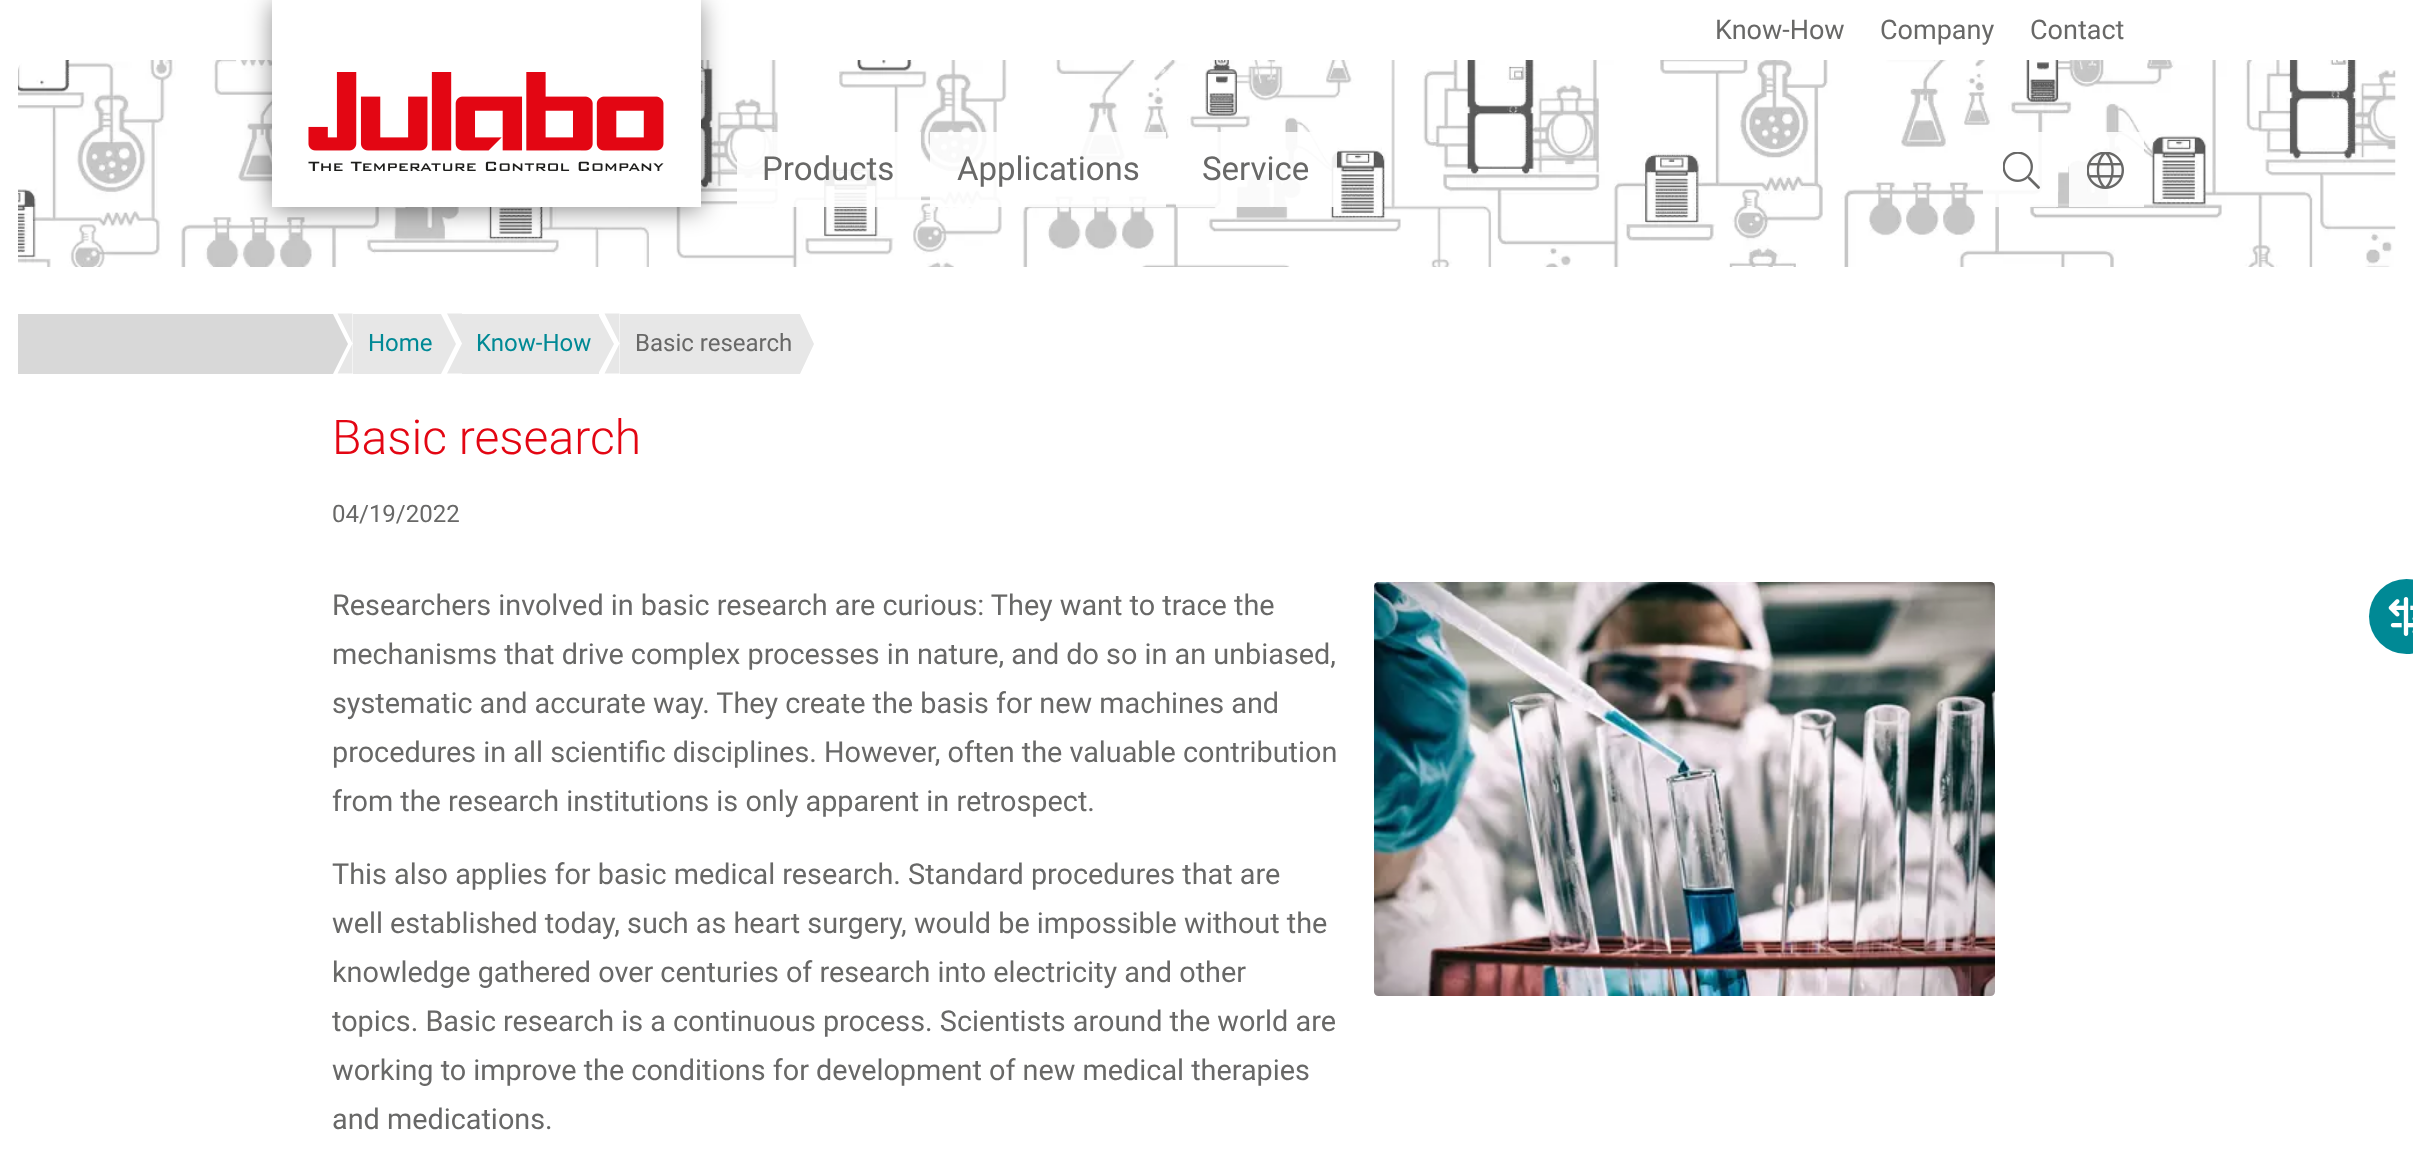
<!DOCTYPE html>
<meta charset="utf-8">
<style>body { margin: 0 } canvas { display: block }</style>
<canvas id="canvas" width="2413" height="1158"></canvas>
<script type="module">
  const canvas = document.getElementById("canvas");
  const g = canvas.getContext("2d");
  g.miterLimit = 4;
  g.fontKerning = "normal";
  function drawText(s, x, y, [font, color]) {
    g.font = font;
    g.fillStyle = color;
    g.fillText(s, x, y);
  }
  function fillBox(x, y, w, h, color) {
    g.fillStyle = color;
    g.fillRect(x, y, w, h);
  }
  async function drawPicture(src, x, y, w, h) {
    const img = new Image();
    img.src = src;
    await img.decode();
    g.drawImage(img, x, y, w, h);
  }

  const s1 = ["27px Roboto", "#686867"];
  const s2 = ["33px Roboto", "#686867"];
  const s3 = ["24px Roboto", "#008995"];
  const s4 = ["24px Roboto", "#686867"];
  const s5 = ["300 48px Roboto", "#E30613"];
  const s6 = ["28.8px Roboto", "#686867"];

  fillBox(0, 0, 2413, 1158, "#FFFFFF");
  await drawPicture("pic4.png", 18, 60, 2378, 207);
  g.fillStyle = "rgba(0, 0, 0, 0.45)";
  g.filter = "blur(12px)";
  g.beginPath();
  g.rect(272, 3, 429, 207);
  g.fill();
  g.filter = "none";
  fillBox(272, 0, 429, 207, "#FFFFFF");
  await drawPicture("pic1.png", 308, 72, 356, 99);
  drawText("Know-How", 1715, 39, s1);
  drawText("Company", 1880, 39, s1);
  drawText("Contact", 2030, 39, s1);
  fillBox(737, 132, 184, 75, "rgba(255, 255, 255, 0.9)");
  drawText("Products", 762, 180, s2);
  fillBox(930, 132, 236, 75, "rgba(255, 255, 255, 0.9)");
  drawText("Applications", 957, 180, s2);
  fillBox(1176, 132, 161, 75, "rgba(255, 255, 255, 0.9)");
  drawText("Service", 1202, 180, s2);
  fillBox(1983, 132, 75, 75, "rgba(255, 255, 255, 0.9)");
  await drawPicture("pic2.png", 2003, 152, 37, 37);
  fillBox(2069, 132, 75, 75, "rgba(255, 255, 255, 0.9)");
  await drawPicture("pic3.png", 2087, 152, 37, 37);
  fillBox(18, 314, 315, 60, "#D8D8D8");
  g.beginPath();
  g.moveTo(333, 374);
  g.lineTo(333, 314);
  g.lineTo(348, 344);
  g.closePath();
  g.fill();
  fillBox(353, 314, 88, 60, "#E7E7E7");
  g.beginPath();
  g.moveTo(337.5, 313.5);
  g.lineTo(352.5, 313.5);
  g.lineTo(352.5, 343.5);
  g.closePath();
  g.fill();
  g.beginPath();
  g.moveTo(352.5, 373.5);
  g.lineTo(337.5, 373.5);
  g.lineTo(352.5, 343.5);
  g.closePath();
  g.fill();
  drawText("Home", 368, 351, s3);
  g.fillStyle = "#E7E7E7";
  g.beginPath();
  g.moveTo(441, 374);
  g.lineTo(441, 314);
  g.lineTo(456, 344);
  g.closePath();
  g.fill();
  fillBox(462, 314, 137, 60, "#E7E7E7");
  g.beginPath();
  g.moveTo(447, 313.5);
  g.lineTo(462, 313.5);
  g.lineTo(462, 343.5);
  g.closePath();
  g.fill();
  g.beginPath();
  g.moveTo(462, 373.5);
  g.lineTo(447, 373.5);
  g.lineTo(462, 343.5);
  g.closePath();
  g.fill();
  drawText("Know-How", 476, 351, s3);
  g.fillStyle = "#E7E7E7";
  g.beginPath();
  g.moveTo(598, 374);
  g.lineTo(598, 314);
  g.lineTo(614, 344);
  g.closePath();
  g.fill();
  fillBox(620, 314, 180, 60, "#E7E7E7");
  g.beginPath();
  g.moveTo(604.5, 313.5);
  g.lineTo(619.5, 313.5);
  g.lineTo(619.5, 343.5);
  g.closePath();
  g.fill();
  g.beginPath();
  g.moveTo(619.5, 373.5);
  g.lineTo(604.5, 373.5);
  g.lineTo(619.5, 343.5);
  g.closePath();
  g.fill();
  drawText("Basic research", 635, 351, s4);
  g.fillStyle = "#E7E7E7";
  g.beginPath();
  g.moveTo(800, 374);
  g.lineTo(800, 314);
  g.lineTo(814, 344);
  g.closePath();
  g.fill();
  drawText("Basic research", 332, 454, s5);
  drawText("04/19/2022", 332, 522, s4);
  drawText("Researchers involved in basic research are curious: They want to trace the", 332, 615, s6);
  drawText("mechanisms that drive complex processes in nature, and do so in an unbiased,", 332, 664, s6);
  drawText("systematic and accurate way. They create the basis for new machines and", 332, 713, s6);
  drawText("procedures in all scientific disciplines. However, often the valuable contribution", 332, 762, s6);
  drawText("from the research institutions is only apparent in retrospect.", 332, 811, s6);
  drawText("This also applies for basic medical research. Standard procedures that are", 332, 884, s6);
  drawText("well established today, such as heart surgery, would be impossible without the", 332, 933, s6);
  drawText("knowledge gathered over centuries of research into electricity and other", 332, 982, s6);
  drawText("topics. Basic research is a continuous process. Scientists around the world are", 332, 1031, s6);
  drawText("working to improve the conditions for development of new medical therapies", 332, 1080, s6);
  drawText("and medications.", 332, 1129, s6);
  await drawPicture("pic5.png", 1374, 582, 621, 414);
  g.fillStyle = "#008995";
  g.beginPath();
  g.arc(2406.5, 616.5, 37.5, 0, Math.PI * 2);
  g.fill();
  await drawPicture("pic6.png", 2388, 597, 25, 39);
</script>
